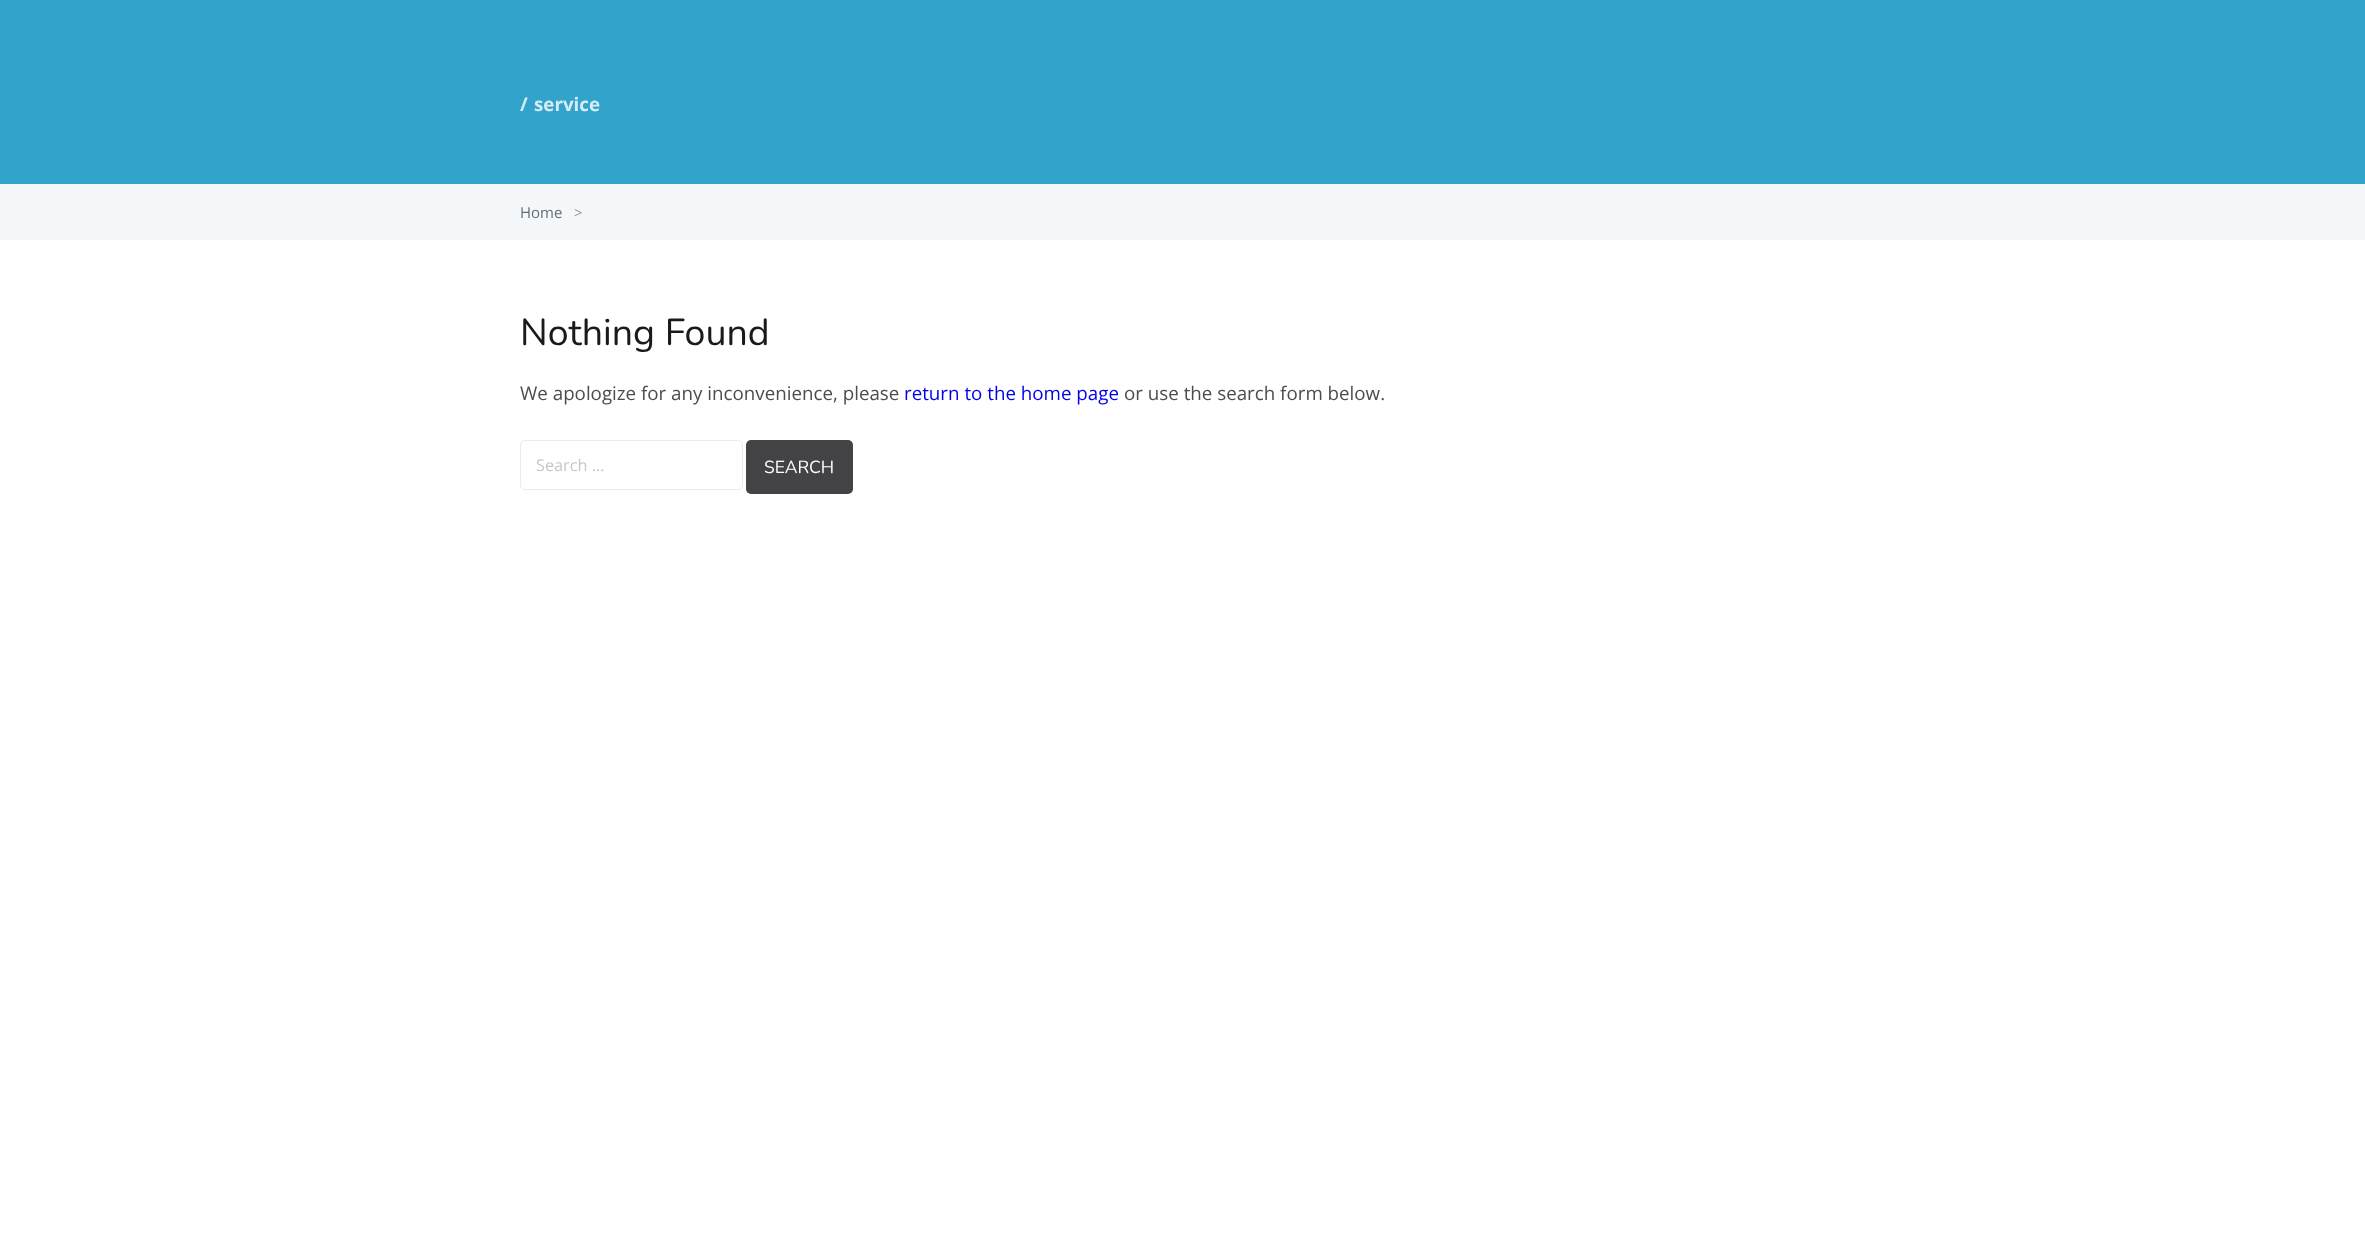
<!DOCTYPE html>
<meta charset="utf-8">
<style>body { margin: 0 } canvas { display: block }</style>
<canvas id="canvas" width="2365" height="1236"></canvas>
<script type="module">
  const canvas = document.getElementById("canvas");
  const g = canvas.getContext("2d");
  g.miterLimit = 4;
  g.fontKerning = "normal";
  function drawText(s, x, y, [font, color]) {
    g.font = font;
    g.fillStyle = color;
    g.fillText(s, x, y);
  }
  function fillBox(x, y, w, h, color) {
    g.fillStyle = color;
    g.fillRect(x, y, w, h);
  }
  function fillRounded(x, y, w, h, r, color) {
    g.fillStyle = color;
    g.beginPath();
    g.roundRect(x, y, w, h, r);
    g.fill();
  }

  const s1 = ["bold 18.75px Open Sans", "#D6EDF5"];
  const s2 = ["15px Open Sans", "#666D73"];
  const s3 = ["15px Open Sans", "#8C8C8C"];
  const s4 = ["200 37.5px Nunito", "#1A1A1A"];
  const s5 = ["18.75px Open Sans", "#4B4D4D"];
  const s6 = ["18.75px Open Sans", "#0000EE"];
  const s7 = ["16.25px Open Sans", "#C7C7C7"];
  const s8 = ["200 17.5px Nunito", "#FFFFFF"];

  fillBox(0, 0, 2365, 1236, "#FFFFFF");
  fillBox(0, 0, 2365, 184, "#32A3CB");
  drawText("/", 520, 111, s1);
  drawText("service", 534, 111, s1);
  fillBox(0, 184, 2365, 56, "#F5F8FA");
  drawText("Home", 520, 218, s2);
  drawText(">", 574, 218, s3);
  drawText("Nothing Found", 520, 345, s4);
  drawText("We apologize for any inconvenience, please", 520, 400, s5);
  drawText("return to the home page", 904, 400, s6);
  drawText("or use the search form below.", 1124, 400, s5);
  g.beginPath();
  g.roundRect(520.5, 440.5, 222, 49, 4.5);
  g.strokeStyle = "#EBEBEB";
  g.stroke();
  drawText("Search …", 536, 471, s7);
  fillRounded(746, 440, 107, 54, 5, "#434345");
  drawText("SEARCH", 764, 473, s8);
</script>
